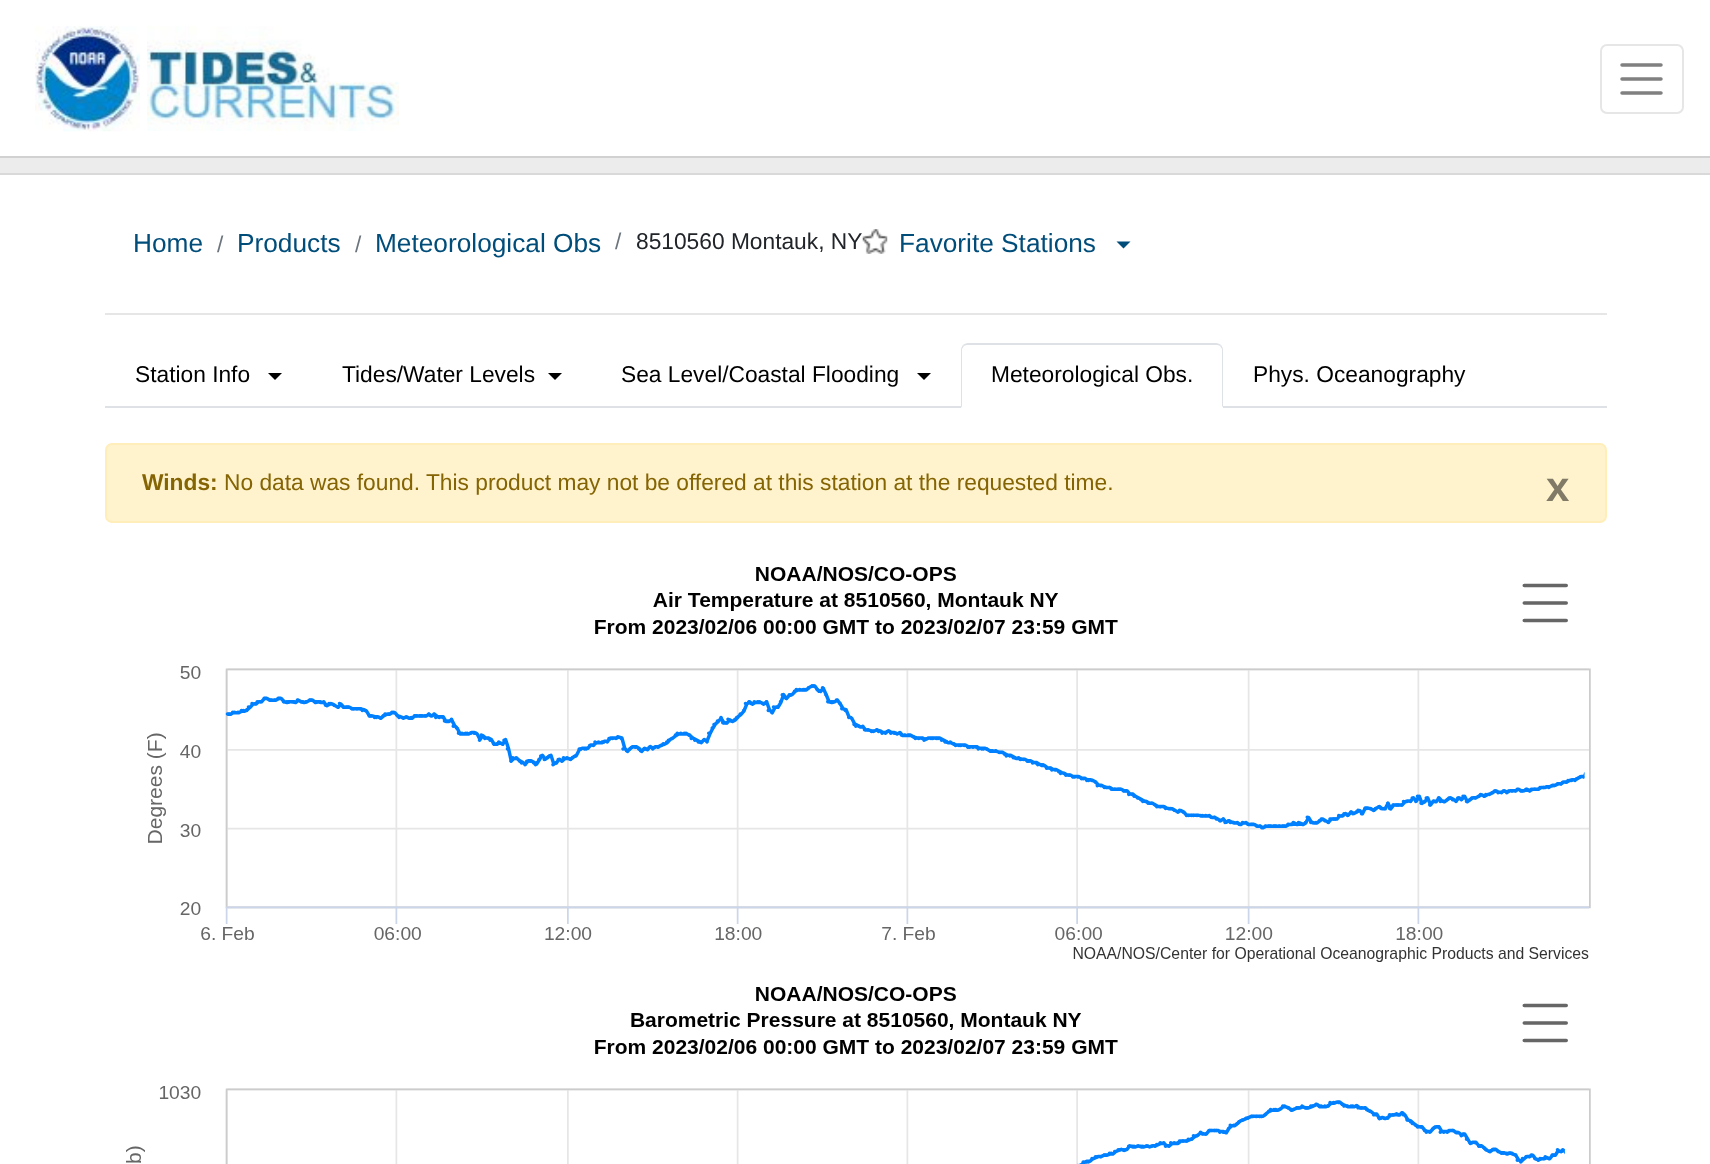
<!DOCTYPE html>
<meta charset="utf-8">
<style>body { margin: 0 } canvas { display: block }</style>
<canvas id="canvas" width="1710" height="1164"></canvas>
<script type="module">
  const canvas = document.getElementById("canvas");
  const g = canvas.getContext("2d");
  g.miterLimit = 4;
  g.fontKerning = "normal";
  function drawText(s, x, y, [font, color]) {
    g.font = font;
    g.fillStyle = color;
    g.fillText(s, x, y);
  }
  function fillBox(x, y, w, h, color) {
    g.fillStyle = color;
    g.fillRect(x, y, w, h);
  }
  async function drawPicture(src, x, y, w, h) {
    const img = new Image();
    img.src = src;
    await img.decode();
    g.drawImage(img, x, y, w, h);
  }

  const s1 = ["26.25px Liberation Sans", "#004D7A"];
  const s2 = ["22.75px Liberation Sans", "#6C757D"];
  const s3 = ["22.75px Liberation Sans", "#212529"];
  const s4 = ["22.75px Liberation Sans", "#000000"];
  const s5 = ["bold 22.75px Liberation Sans", "#856404"];
  const s6 = ["22.75px Liberation Sans", "#856404"];
  const s7 = ["bold 42px Liberation Sans", "#807A67"];

  fillBox(0, 0, 1710, 1164, "#FFFFFF");
  fillBox(0, 156, 1710, 2, "#D1D1D1");
  await drawPicture("pic1.png", 35, 26, 105, 106);
  await drawPicture("pic2.png", 147, 26, 252, 105);
  g.beginPath();
  g.roundRect(1601, 45, 82, 68, 6);
  g.strokeStyle = "#E6E6E6";
  g.lineWidth = 2;
  g.stroke();
  g.beginPath();
  g.moveTo(1622, 65);
  g.lineTo(1661, 65);
  g.moveTo(1622, 79);
  g.lineTo(1661, 79);
  g.moveTo(1622, 93);
  g.lineTo(1661, 93);
  g.strokeStyle = "#808080";
  g.lineWidth = 3.5;
  g.lineCap = "round";
  g.stroke();
  fillBox(0, 158, 1710, 15, "#ECECEC");
  fillBox(0, 173, 1710, 2, "#D9D9D9");
  drawText("Home", 133, 252, s1);
  drawText("/", 217, 252, s2);
  drawText("Products", 237, 252, s1);
  drawText("/", 355, 252, s2);
  drawText("Meteorological Obs", 375, 252, s1);
  drawText("/", 615, 249, s2);
  drawText("8510560 Montauk, NY", 636, 249, s3);
  await drawPicture("pic3.png", 862, 229, 26, 25);
  drawText("Favorite Stations", 899, 252, s1);
  g.beginPath();
  g.moveTo(1116.5, 241.5);
  g.lineTo(1130.5, 241.5);
  g.lineTo(1123.5, 248.5);
  g.closePath();
  g.fill();
  fillBox(105, 313, 1502, 2, "#E6E6E6");
  fillBox(105, 406, 1502, 2, "#DEE2E6");
  drawText("Station Info", 135, 382, s4);
  g.beginPath();
  g.moveTo(268, 373);
  g.lineTo(282, 373);
  g.lineTo(275, 380);
  g.closePath();
  g.fill();
  drawText("Tides/Water Levels", 342, 382, s4);
  g.beginPath();
  g.moveTo(548, 373);
  g.lineTo(562, 373);
  g.lineTo(555, 380);
  g.closePath();
  g.fill();
  drawText("Sea Level/Coastal Flooding", 621, 382, s4);
  g.beginPath();
  g.moveTo(917, 373);
  g.lineTo(931, 373);
  g.lineTo(924, 380);
  g.closePath();
  g.fill();
  g.fillStyle = "#FFFFFF";
  g.beginPath();
  g.roundRect(961, 343, 262, 65, [7, 7, 0, 0]);
  g.fill();
  g.fillStyle = "#DEE2E6";
  g.beginPath();
  g.moveTo(968, 343);
  g.bezierCurveTo(966, 343, 964, 344, 963, 345);
  g.lineTo(964, 346);
  g.bezierCurveTo(965, 345, 967, 345, 968, 345);
  g.lineTo(1216, 345);
  g.bezierCurveTo(1217, 345, 1219, 345, 1220, 346);
  g.lineTo(1221, 345);
  g.bezierCurveTo(1220, 344, 1218, 343, 1216, 343);
  g.closePath();
  g.fill();
  g.beginPath();
  g.moveTo(1221, 345);
  g.bezierCurveTo(1222, 346, 1223, 348, 1223, 350);
  g.lineTo(1223, 408);
  g.lineTo(1222, 406);
  g.lineTo(1222, 349);
  g.lineTo(1220, 346);
  g.closePath();
  g.fill();
  g.fillStyle = "#FFFFFF";
  g.beginPath();
  g.moveTo(961, 408);
  g.lineTo(962, 406);
  g.lineTo(1222, 406);
  g.lineTo(1223, 408);
  g.closePath();
  g.fill();
  g.fillStyle = "#DEE2E6";
  g.beginPath();
  g.moveTo(963, 345);
  g.bezierCurveTo(962, 346, 961, 348, 961, 350);
  g.lineTo(961, 408);
  g.lineTo(962, 406);
  g.lineTo(962, 349);
  g.lineTo(964, 346);
  g.closePath();
  g.fill();
  drawText("Meteorological Obs.", 991, 382, s4);
  drawText("Phys. Oceanography", 1253, 382, s4);
  g.fillStyle = "#FFF3CD";
  g.beginPath();
  g.roundRect(106, 444, 1500, 78, 6);
  g.fill();
  g.strokeStyle = "#FFEEBA";
  g.lineWidth = 2;
  g.stroke();
  drawText("Winds:", 142, 490, s5);
  drawText("No data was found. This product may not be offered at this station at the requested time.", 224, 490, s6);
  drawText("x", 1546, 501, s7);
  await drawPicture("pic4.png", 147, 566, 1444, 396);
  await drawPicture("pic5.png", 126, 986, 1465, 178);
</script>
